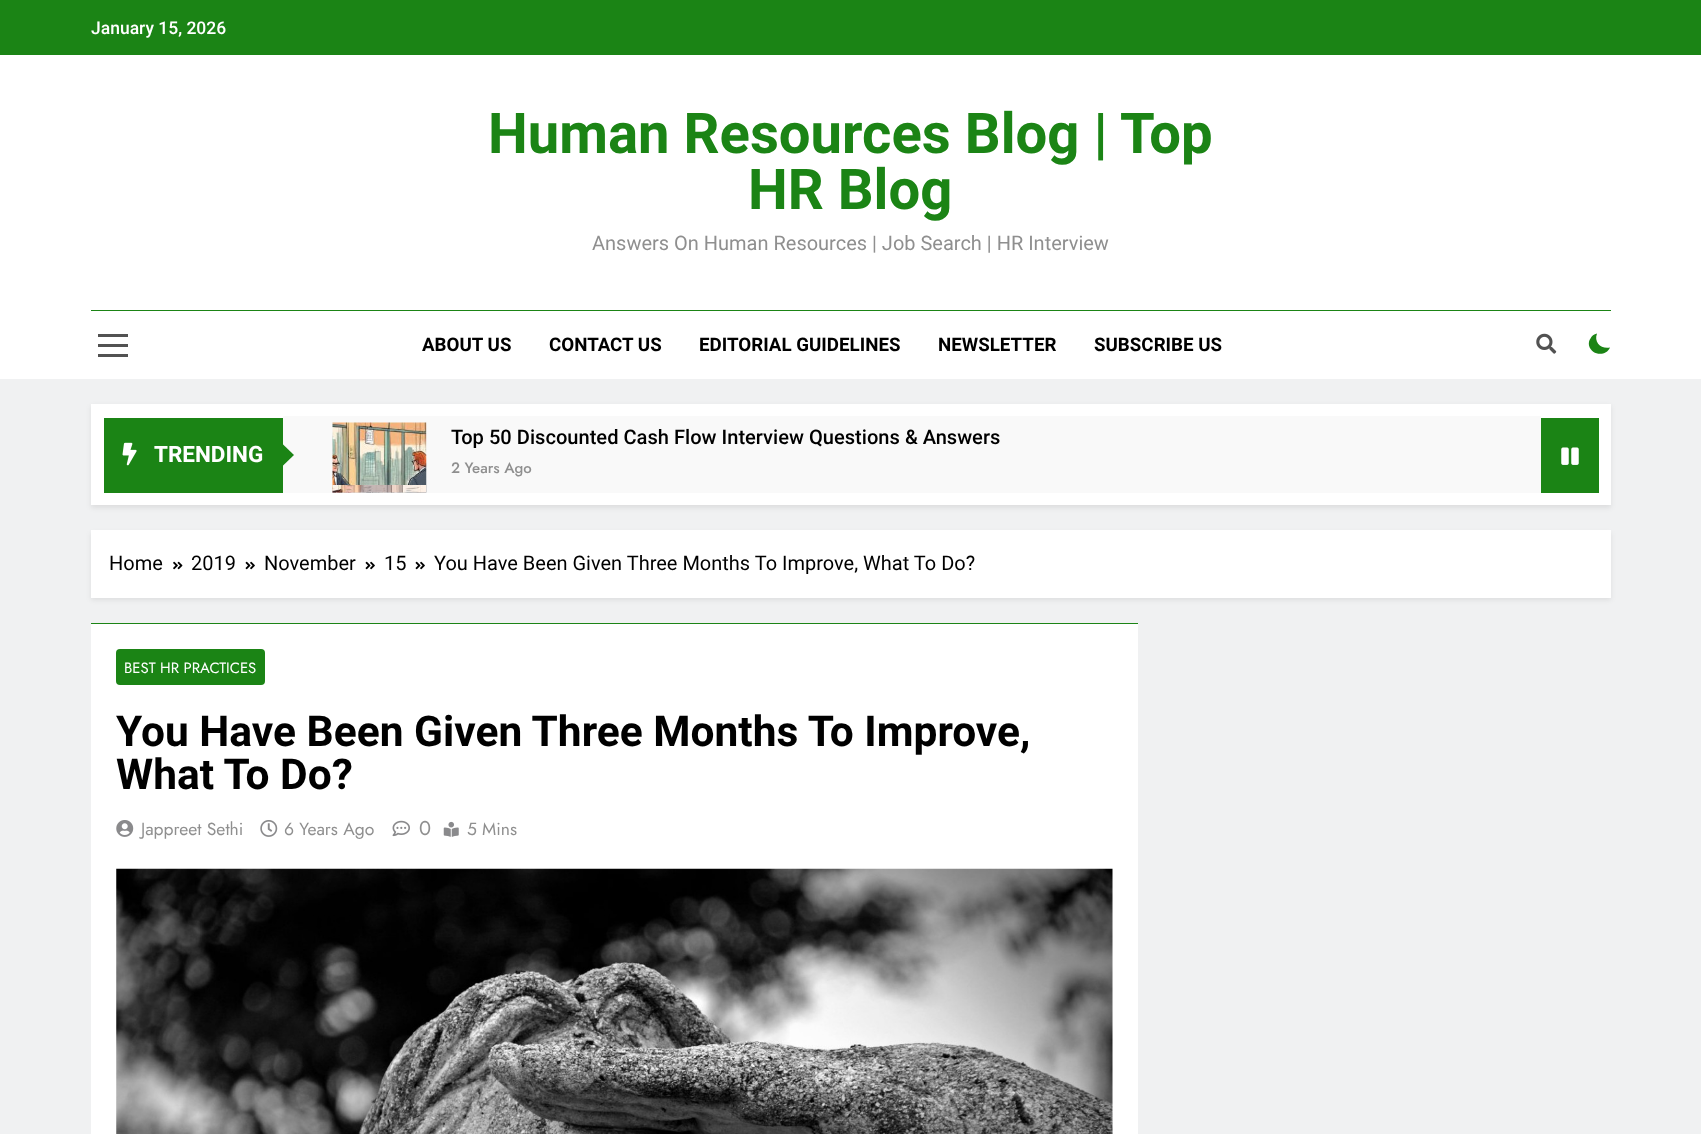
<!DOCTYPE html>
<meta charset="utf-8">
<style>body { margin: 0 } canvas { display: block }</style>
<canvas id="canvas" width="1701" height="1134"></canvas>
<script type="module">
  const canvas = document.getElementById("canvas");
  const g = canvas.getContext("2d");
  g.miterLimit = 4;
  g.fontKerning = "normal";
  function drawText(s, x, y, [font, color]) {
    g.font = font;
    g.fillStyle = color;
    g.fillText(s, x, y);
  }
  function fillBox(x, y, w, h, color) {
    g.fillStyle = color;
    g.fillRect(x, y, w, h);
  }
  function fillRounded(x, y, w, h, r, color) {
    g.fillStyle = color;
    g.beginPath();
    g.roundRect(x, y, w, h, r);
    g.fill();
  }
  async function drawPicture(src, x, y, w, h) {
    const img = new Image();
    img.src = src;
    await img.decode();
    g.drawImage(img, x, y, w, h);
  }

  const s1 = ["500 17.5px Roboto", "#FFFFFF"];
  const s2 = ["bold 56.25px Roboto", "#1B8415"];
  const s3 = ["20px Roboto", "#8F8F8F"];
  const s4 = ["bold 18.75px Roboto", "#000000"];
  const s5 = ["bold 22.5px Roboto", "#FFFFFF"];
  const s6 = ["500 20.1px Roboto", "#000000"];
  const s7 = ["500 15px Jost", "#8F8F8F"];
  const s8 = ["20px Roboto", "#000000"];
  const s9 = ["14.9px Jost", "#FFFFFF"];
  const s10 = ["bold 42.5px Roboto", "#000000"];
  const s11 = ["17.5px Jost", "#8F8F8F"];
  const s12 = ["20px Jost", "#8F8F8F"];

  fillBox(0, 0, 1701, 1134, "#F0F1F2");
  fillBox(0, 0, 1701, 55, "#1B8415");
  drawText("January 15, 2026", 91, 34, s1);
  fillBox(0, 55, 1701, 324, "#FFFFFF");
  drawText("Human Resources Blog | Top", 488, 153, s2);
  drawText("HR Blog", 748, 209, s2);
  drawText("Answers On Human Resources | Job Search | HR Interview", 592, 250, s3);
  fillBox(91, 310, 1520, 1, "#1B8415");
  fillBox(98, 334, 30, 3, "#525252");
  fillBox(98, 344, 30, 3, "#525252");
  fillBox(98, 354, 30, 3, "#525252");
  drawText("ABOUT US", 422, 351, s4);
  drawText("CONTACT US", 549, 351, s4);
  drawText("EDITORIAL GUIDELINES", 699, 351, s4);
  drawText("NEWSLETTER", 938, 351, s4);
  drawText("SUBSCRIBE US", 1094, 351, s4);
  await drawPicture("pic1.png", 1536, 333, 21, 21);
  g.fillStyle = "#1B8415";
  g.beginPath();
  g.moveTo(1610, 347.5);
  g.bezierCurveTo(1601.5, 349.5, 1593.5, 342.5, 1597, 333.5);
  g.bezierCurveTo(1594, 334, 1591.5, 336, 1590.5, 338.5);
  g.bezierCurveTo(1589, 340.5, 1588.5, 343, 1589, 345.5);
  g.bezierCurveTo(1591.5, 355.5, 1606, 357, 1610, 347.5);
  g.closePath();
  g.fill();
  g.fillStyle = "rgba(0, 0, 0, 0.08)";
  g.filter = "blur(2.5px)";
  g.beginPath();
  g.rect(91, 406, 1520, 102);
  g.fill();
  g.filter = "none";
  fillBox(91, 404, 1520, 101, "#FFFFFF");
  fillBox(104, 418, 179, 75, "#1B8415");
  await drawPicture("pic2.png", 122, 442, 15, 24);
  drawText("TRENDING", 154, 462, s5);
  fillBox(283, 416, 1258, 77, "#F9F9F9");
  g.fillStyle = "#1B8415";
  g.beginPath();
  g.moveTo(281, 467.5);
  g.lineTo(281, 442.5);
  g.lineTo(294, 455);
  g.closePath();
  g.fill();
  await drawPicture("pic3.png", 332, 422, 95, 71);
  drawText("Top 50 Discounted Cash Flow Interview Questions & Answers", 451, 444, s6);
  drawText("2 Years Ago", 451, 473, s7);
  await drawPicture("pic4.png", 332, 485, 95, 8);
  fillBox(1541, 418, 58, 75, "#1B8415");
  await drawPicture("pic5.png", 1561, 447, 18, 18);
  g.fillStyle = "rgba(0, 0, 0, 0.08)";
  g.filter = "blur(2.5px)";
  g.beginPath();
  g.rect(91, 533, 1520, 67);
  g.fill();
  g.filter = "none";
  fillBox(91, 530, 1520, 68, "#FFFFFF");
  drawText("Home", 109, 570, s8);
  await drawPicture("pic6.png", 173, 561, 10, 9);
  drawText("2019", 191, 570, s8);
  await drawPicture("pic7.png", 245, 561, 10, 9);
  drawText("November", 264, 570, s8);
  await drawPicture("pic7.png", 365, 561, 10, 9);
  drawText("15", 384, 570, s8);
  await drawPicture("pic7.png", 415, 561, 10, 9);
  drawText("You Have Been Given Three Months To Improve, What To Do?", 434, 570, s8);
  fillBox(91, 624, 1047, 510, "#FFFFFF");
  fillBox(91, 623, 1047, 1, "#1B8415");
  fillRounded(116, 649, 149, 36, 4, "#1B8415");
  drawText("BEST HR PRACTICES", 124, 673, s9);
  drawText("You Have Been Given Three Months To Improve,", 116, 746, s10);
  drawText("What To Do?", 116, 789, s10);
  await drawPicture("pic8.png", 116, 820, 18, 17);
  drawText("Jappreet Sethi", 141, 835, s11);
  await drawPicture("pic9.png", 260, 820, 18, 17);
  drawText("6 Years Ago", 284, 835, s11);
  await drawPicture("pic10.png", 392, 820, 18, 17);
  drawText("0", 419, 835, s12);
  await drawPicture("pic11.png", 443, 821, 16, 16);
  drawText("5 Mins", 467, 835, s11);
  await drawPicture("pic12.png", 116, 868, 997, 266);
</script>
